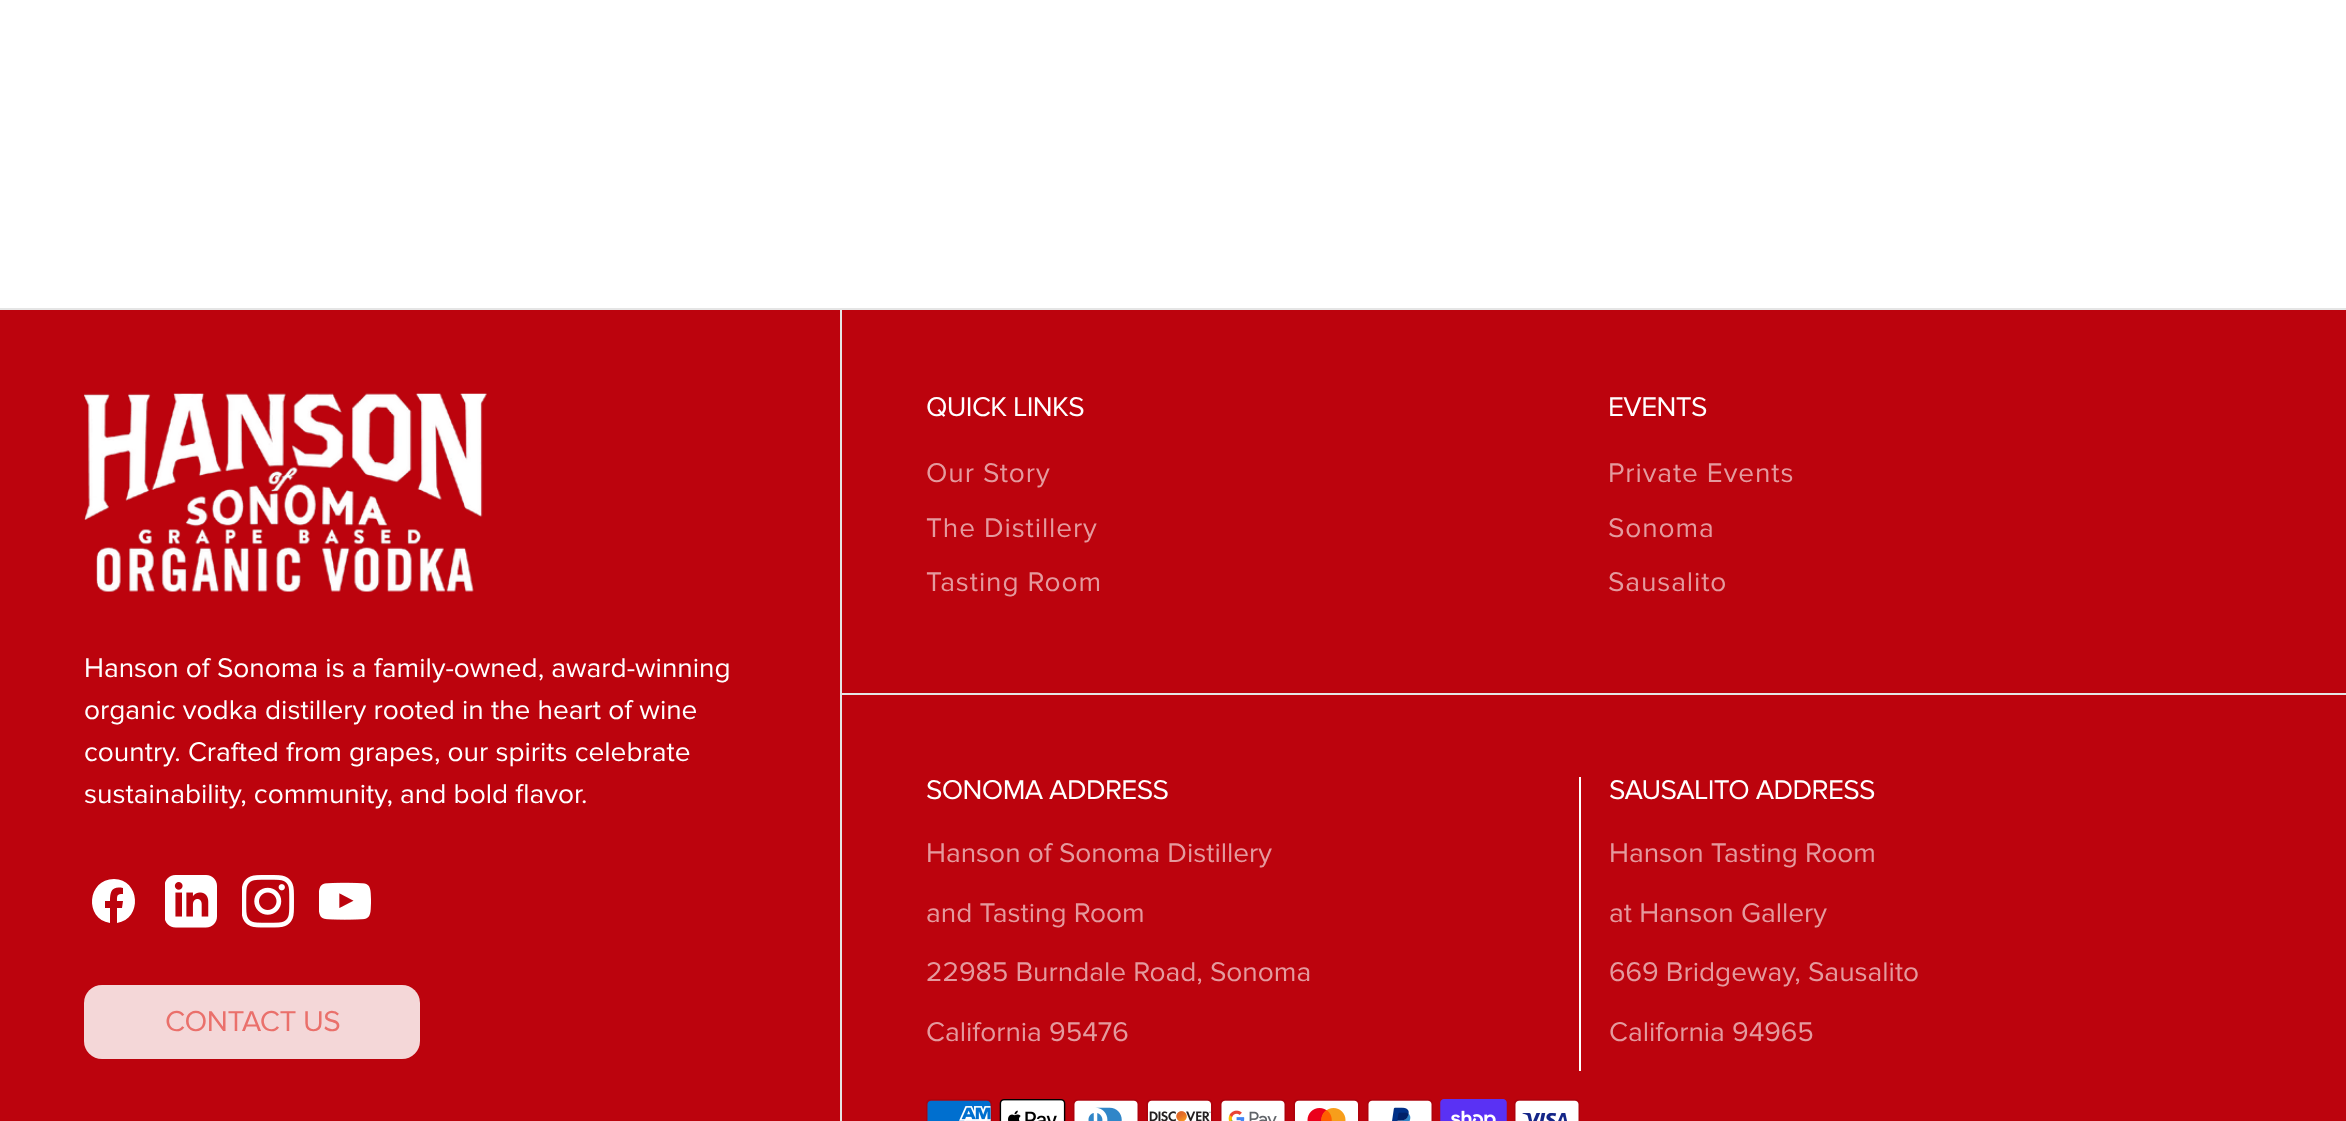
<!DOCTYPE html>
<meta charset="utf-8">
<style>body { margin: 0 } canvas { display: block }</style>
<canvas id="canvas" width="2346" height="1121"></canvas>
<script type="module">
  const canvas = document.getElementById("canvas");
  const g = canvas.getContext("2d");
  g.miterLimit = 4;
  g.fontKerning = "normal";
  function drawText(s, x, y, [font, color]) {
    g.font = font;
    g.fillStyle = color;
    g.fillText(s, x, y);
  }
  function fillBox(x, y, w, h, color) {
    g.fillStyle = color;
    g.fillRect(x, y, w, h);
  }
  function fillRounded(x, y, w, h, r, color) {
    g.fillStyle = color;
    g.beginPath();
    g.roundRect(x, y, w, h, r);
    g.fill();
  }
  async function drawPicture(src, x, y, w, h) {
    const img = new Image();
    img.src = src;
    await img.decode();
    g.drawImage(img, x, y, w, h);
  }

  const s1 = ["28px Proxima Nova", "#FFFFFF"];
  const s2 = ["28px Proxima Nova", "#E49A9E"];
  const s3 = ["29.75px Proxima Nova", "#EA706B"];

  fillBox(0, 0, 2346, 1121, "#FFFFFF");
  fillBox(0, 310, 2346, 811, "#BC030D");
  fillBox(0, 308, 2346, 2, "#E5E5E5");
  g.letterSpacing = "-0.6px";
  drawText("QUICK LINKS", 926, 416, s1);
  g.letterSpacing = "0.9px";
  drawText("Our Story", 926, 482, s2);
  drawText("The Distillery", 926, 537, s2);
  drawText("Tasting Room", 926, 591, s2);
  g.letterSpacing = "-0.6px";
  drawText("EVENTS", 1608, 416, s1);
  g.letterSpacing = "0.9px";
  drawText("Private Events", 1608, 482, s2);
  drawText("Sonoma", 1608, 537, s2);
  drawText("Sausalito", 1608, 591, s2);
  fillBox(840, 310, 2, 811, "#E5E5E5");
  await drawPicture("pic1.png", 84, 393, 403, 199);
  g.letterSpacing = "0px";
  drawText("Hanson of Sonoma is a family-owned, award-winning", 84, 677, s1);
  drawText("organic vodka distillery rooted in the heart of wine", 84, 719, s1);
  drawText("country. Crafted from grapes, our spirits celebrate", 84, 761, s1);
  drawText("sustainability, community, and bold flavor.", 84, 803, s1);
  g.beginPath();
  g.moveTo(114, 879);
  g.bezierCurveTo(87, 879, 84, 919, 110, 923);
  g.lineTo(110, 908);
  g.lineTo(105, 908);
  g.lineTo(105, 901);
  g.lineTo(110, 901);
  g.bezierCurveTo(110, 891, 112, 886, 123, 888);
  g.lineTo(123, 894);
  g.bezierCurveTo(117, 894, 117, 895, 117, 901);
  g.lineTo(123, 901);
  g.lineTo(122, 908);
  g.lineTo(117, 908);
  g.lineTo(117, 923);
  g.bezierCurveTo(143, 919, 140, 879, 114, 879);
  g.closePath();
  g.fill();
  await drawPicture("pic2.png", 165, 875, 52, 53);
  await drawPicture("pic3.png", 242, 875, 52, 53);
  await drawPicture("pic4.png", 319, 882, 52, 38);
  fillRounded(84, 985, 336, 74, 18, "#F4D7D8");
  g.letterSpacing = "-0.5px";
  drawText("CONTACT US", 165, 1031, s3);
  fillBox(842, 693, 1504, 2, "#E5E5E5");
  fillBox(1579, 777, 2, 294, "#FFFFFF");
  g.letterSpacing = "-0.6px";
  drawText("SONOMA ADDRESS", 926, 799, s1);
  g.letterSpacing = "0px";
  drawText("Hanson of Sonoma Distillery", 926, 862, s2);
  drawText("and Tasting Room", 926, 922, s2);
  drawText("22985 Burndale Road, Sonoma", 926, 981, s2);
  drawText("California 95476", 926, 1041, s2);
  g.letterSpacing = "-0.6px";
  drawText("SAUSALITO ADDRESS", 1609, 799, s1);
  g.letterSpacing = "0px";
  drawText("Hanson Tasting Room", 1609, 862, s2);
  drawText("at Hanson Gallery", 1609, 922, s2);
  drawText("669 Bridgeway, Sausalito", 1609, 981, s2);
  drawText("California 94965", 1609, 1041, s2);
  await drawPicture("pic5.png", 926, 1099, 66, 22);
  await drawPicture("pic6.png", 999, 1099, 67, 22);
  await drawPicture("pic7.png", 1073, 1099, 66, 22);
  await drawPicture("pic8.png", 1146, 1099, 67, 22);
  await drawPicture("pic9.png", 1220, 1099, 66, 22);
  await drawPicture("pic10.png", 1293, 1099, 67, 22);
  await drawPicture("pic11.png", 1367, 1099, 66, 22);
  await drawPicture("pic12.png", 1440, 1099, 67, 22);
  await drawPicture("pic13.png", 1514, 1099, 66, 22);
</script>
